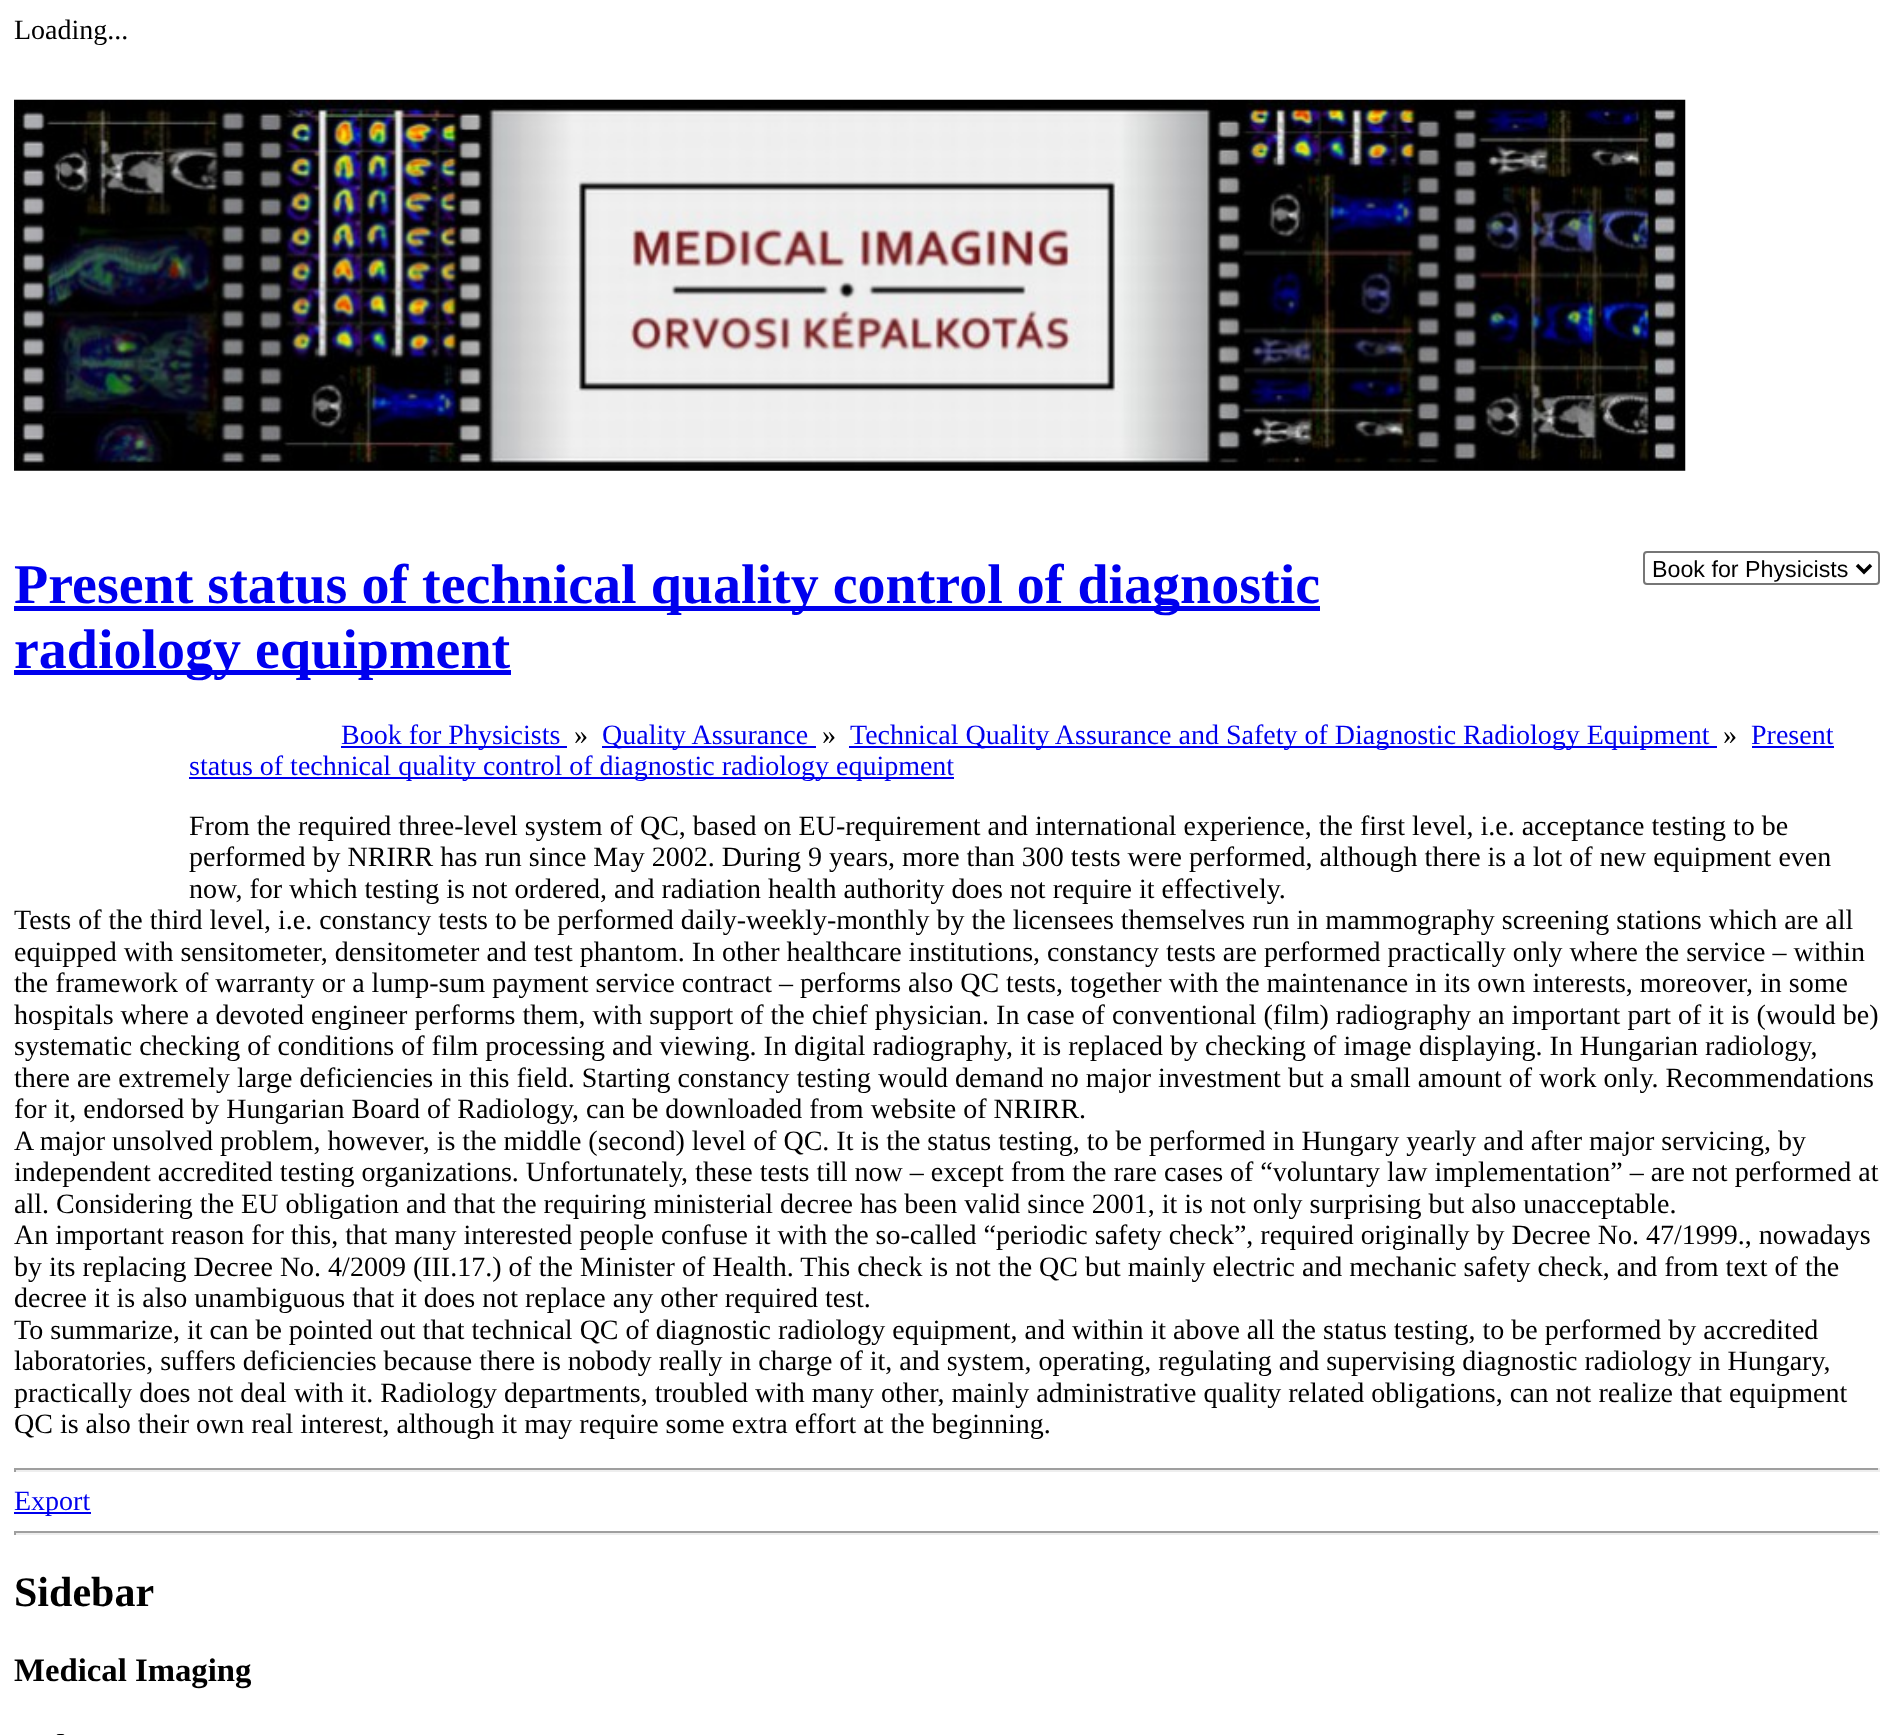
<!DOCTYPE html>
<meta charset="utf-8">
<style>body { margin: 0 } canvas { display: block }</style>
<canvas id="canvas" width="1893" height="1735"></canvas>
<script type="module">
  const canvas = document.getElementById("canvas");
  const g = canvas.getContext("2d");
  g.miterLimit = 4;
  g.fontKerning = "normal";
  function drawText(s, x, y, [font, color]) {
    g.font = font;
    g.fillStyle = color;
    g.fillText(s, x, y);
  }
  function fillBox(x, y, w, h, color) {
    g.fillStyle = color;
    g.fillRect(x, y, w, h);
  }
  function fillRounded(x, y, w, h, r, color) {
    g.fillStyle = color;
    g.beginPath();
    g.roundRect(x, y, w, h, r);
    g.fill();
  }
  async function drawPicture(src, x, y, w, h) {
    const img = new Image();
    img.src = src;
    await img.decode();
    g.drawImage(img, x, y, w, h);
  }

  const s1 = ["28px Liberation Serif", "#000000"];
  const s2 = ["23.25px Liberation Sans", "#000000"];
  const s3 = ["bold 56px Liberation Serif", "#0000EE"];
  const s4 = ["28px Liberation Serif", "#0000EE"];
  const s5 = ["bold 42px Liberation Serif", "#000000"];
  const s6 = ["bold 32.75px Liberation Serif", "#000000"];

  fillBox(0, 0, 1893, 1735, "#FFFFFF");
  drawText("Loading...", 14, 39, s1);
  await drawPicture("pic1.png", 14, 99, 1672, 372);
  g.beginPath();
  g.roundRect(1644, 552, 235, 32, 3);
  g.strokeStyle = "#767676";
  g.lineWidth = 2;
  g.stroke();
  g.beginPath();
  g.moveTo(1857, 565);
  g.lineTo(1864, 572);
  g.lineTo(1871, 565);
  g.strokeStyle = "#000000";
  g.lineWidth = 3.5;
  g.stroke();
  drawText("Book for Physicists", 1652, 577, s2);
  fillBox(14, 606, 1306, 5, "#0000EE");
  drawText("Present status of technical quality control of diagnostic", 14, 603, s3);
  fillBox(14, 670, 497, 5, "#0000EE");
  drawText("radiology equipment", 14, 668, s3);
  fillBox(341, 746, 226, 2, "#0000EE");
  drawText("Book for Physicists", 341, 744, s4);
  drawText("»", 574, 744, s1);
  fillBox(602, 746, 214, 2, "#0000EE");
  drawText("Quality Assurance", 602, 744, s4);
  drawText("»", 822, 744, s1);
  fillBox(849, 746, 868, 2, "#0000EE");
  drawText("Technical Quality Assurance and Safety of Diagnostic Radiology Equipment", 850, 744, s4);
  drawText("»", 1723, 744, s1);
  drawText("Present", 1751, 744, s4);
  fillBox(1752, 746, 82, 2, "#0000EE");
  fillBox(189, 777, 765, 2, "#0000EE");
  drawText("status of technical quality control of diagnostic radiology equipment", 189, 775, s4);
  drawText("From the required three-level system of QC, based on EU-requirement and international experience, the first level, i.e. acceptance testing to be", 189, 835, s1);
  drawText("performed by NRIRR has run since May 2002. During 9 years, more than 300 tests were performed, although there is a lot of new equipment even", 189, 866, s1);
  drawText("now, for which testing is not ordered, and radiation health authority does not require it effectively.", 189, 898, s1);
  drawText("Tests of the third level, i.e. constancy tests to be performed daily-weekly-monthly by the licensees themselves run in mammography screening stations which are all", 14, 929, s1);
  drawText("equipped with sensitometer, densitometer and test phantom. In other healthcare institutions, constancy tests are performed practically only where the service – within", 14, 961, s1);
  drawText("the framework of warranty or a lump-sum payment service contract – performs also QC tests, together with the maintenance in its own interests, moreover, in some", 14, 992, s1);
  drawText("hospitals where a devoted engineer performs them, with support of the chief physician. In case of conventional (film) radiography an important part of it is (would be)", 14, 1024, s1);
  drawText("systematic checking of conditions of film processing and viewing. In digital radiography, it is replaced by checking of image displaying. In Hungarian radiology,", 14, 1055, s1);
  drawText("there are extremely large deficiencies in this field. Starting constancy testing would demand no major investment but a small amount of work only. Recommendations", 14, 1087, s1);
  drawText("for it, endorsed by Hungarian Board of Radiology, can be downloaded from website of NRIRR.", 14, 1118, s1);
  drawText("A major unsolved problem, however, is the middle (second) level of QC. It is the status testing, to be performed in Hungary yearly and after major servicing, by", 14, 1150, s1);
  drawText("independent accredited testing organizations. Unfortunately, these tests till now – except from the rare cases of “voluntary law implementation” – are not performed at", 14, 1181, s1);
  drawText("all. Considering the EU obligation and that the requiring ministerial decree has been valid since 2001, it is not only surprising but also unacceptable.", 14, 1213, s1);
  drawText("An important reason for this, that many interested people confuse it with the so-called “periodic safety check”, required originally by Decree No. 47/1999., nowadays", 14, 1244, s1);
  drawText("by its replacing Decree No. 4/2009 (III.17.) of the Minister of Health. This check is not the QC but mainly electric and mechanic safety check, and from text of the", 14, 1276, s1);
  drawText("decree it is also unambiguous that it does not replace any other required test.", 14, 1307, s1);
  drawText("To summarize, it can be pointed out that technical QC of diagnostic radiology equipment, and within it above all the status testing, to be performed by accredited", 14, 1339, s1);
  drawText("laboratories, suffers deficiencies because there is nobody really in charge of it, and system, operating, regulating and supervising diagnostic radiology in Hungary,", 14, 1370, s1);
  drawText("practically does not deal with it. Radiology departments, troubled with many other, mainly administrative quality related obligations, can not realize that equipment", 14, 1402, s1);
  drawText("QC is also their own real interest, although it may require some extra effort at the beginning.", 14, 1433, s1);
  fillBox(14, 1468, 1866, 2, "#9F9F9F");
  fillBox(1878, 1468, 2, 4, "#EEEEEE");
  fillBox(14, 1470, 1866, 2, "#EEEEEE");
  fillBox(14, 1468, 2, 4, "#9F9F9F");
  fillBox(14, 1512, 77, 2, "#0000EE");
  drawText("Export", 14, 1510, s4);
  fillBox(14, 1531, 1866, 2, "#9F9F9F");
  fillBox(1878, 1531, 2, 4, "#EEEEEE");
  fillBox(14, 1533, 1866, 2, "#EEEEEE");
  fillBox(14, 1531, 2, 4, "#9F9F9F");
  drawText("Sidebar", 14, 1606, s5);
  drawText("Medical Imaging", 14, 1681, s6);
  fillRounded(56, 1734, 9, 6, 4.5, "#000000");
</script>
